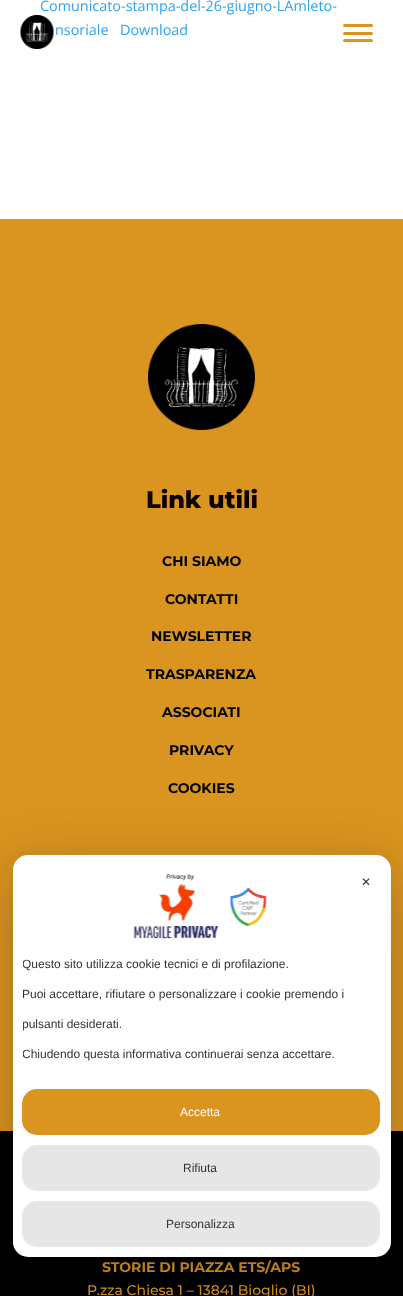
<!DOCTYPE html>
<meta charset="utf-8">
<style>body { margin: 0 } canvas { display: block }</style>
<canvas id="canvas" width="403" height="1296"></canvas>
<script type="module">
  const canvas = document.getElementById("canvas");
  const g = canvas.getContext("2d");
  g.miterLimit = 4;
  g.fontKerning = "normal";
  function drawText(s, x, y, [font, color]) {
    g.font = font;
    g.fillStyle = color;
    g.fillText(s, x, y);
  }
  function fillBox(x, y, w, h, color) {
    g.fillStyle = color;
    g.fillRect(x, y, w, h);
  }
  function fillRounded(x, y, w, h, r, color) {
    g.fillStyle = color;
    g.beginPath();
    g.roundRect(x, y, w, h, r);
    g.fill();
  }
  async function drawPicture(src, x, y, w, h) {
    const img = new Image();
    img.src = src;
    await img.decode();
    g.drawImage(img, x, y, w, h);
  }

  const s1 = ["14.4px Open Sans", "#2EA3F2"];
  const s2 = ["800 24px Montserrat", "#0A0000"];
  const s3 = ["bold 14px Montserrat", "#000000"];
  const s4 = ["bold 14px Montserrat", "#DA9420"];
  const s5 = ["500 14px Montserrat", "#DA9420"];
  const s6 = ["12px DejaVu Sans", "#333333"];
  const s7 = ["12px Liberation Sans", "#333333"];
  const s8 = ["12px Liberation Sans", "#FFFFFF"];

  fillBox(0, 0, 403, 1296, "#FFFFFF");
  drawText("Comunicato-stampa-del-26-giugno-LAmleto-", 40, 11, s1);
  drawText("nsoriale", 55, 35, s1);
  drawText("Download", 120, 35, s1);
  fillBox(0, 219, 403, 912, "#DA9420");
  await drawPicture("pic1.png", 148, 324, 107, 106);
  drawText("Link utili", 146, 508, s2);
  drawText("CHI SIAMO", 162, 566, s3);
  drawText("CONTATTI", 165, 604, s3);
  drawText("NEWSLETTER", 151, 641, s3);
  drawText("TRASPARENZA", 146, 679, s3);
  drawText("ASSOCIATI", 162, 717, s3);
  drawText("PRIVACY", 169, 755, s3);
  drawText("COOKIES", 168, 793, s3);
  fillBox(0, 1131, 403, 165, "#000000");
  drawText("STORIE DI PIAZZA ETS/APS", 102, 1272, s4);
  drawText("P.zza Chiesa 1 – 13841 Bioglio (BI)", 87, 1295, s5);
  await drawPicture("pic2.png", 20, 15, 34, 34);
  fillRounded(343, 24, 30, 3, 1.5, "#DA9420");
  fillRounded(343, 32, 30, 3, 1.5, "#DA9420");
  fillRounded(343, 39, 30, 3, 1.5, "#DA9420");
  g.fillStyle = "rgba(17, 17, 26, 0.1)";
  g.filter = "blur(40px)";
  g.beginPath();
  g.roundRect(13, 879, 378, 402, 15);
  g.fill();
  g.filter = "none";
  g.filter = "blur(28px)";
  g.beginPath();
  g.roundRect(13, 871, 378, 402, 15);
  g.fill();
  g.filter = "none";
  g.filter = "blur(12px)";
  g.beginPath();
  g.roundRect(13, 863, 378, 402, 15);
  g.fill();
  g.filter = "none";
  fillRounded(13, 855, 378, 402, 15, "#FFFFFF");
  drawText("✕", 361, 886, s6);
  await drawPicture("pic3.png", 133, 874, 134, 65);
  g.save();
  g.beginPath();
  g.rect(23, 949, 358, 120);
  g.clip();
  drawText("Questo sito utilizza cookie tecnici e di profilazione.", 22, 968, s7);
  g.restore();
  drawText("Puoi accettare, rifiutare o personalizzare i cookie premendo i", 22, 998, s7);
  g.save();
  g.beginPath();
  g.rect(23, 949, 358, 120);
  g.clip();
  drawText("pulsanti desiderati.", 22, 1028, s7);
  drawText("Chiudendo questa informativa continuerai senza accettare.", 22, 1058, s7);
  g.restore();
  fillRounded(22, 1089, 358, 46, 15, "#DA9420");
  drawText("Accetta", 180, 1116, s8);
  fillRounded(22, 1145, 358, 46, 15, "#E6E6E6");
  drawText("Rifiuta", 183, 1172, s7);
  fillRounded(22, 1201, 358, 46, 15, "#E6E6E6");
  drawText("Personalizza", 166, 1228, s7);
</script>
